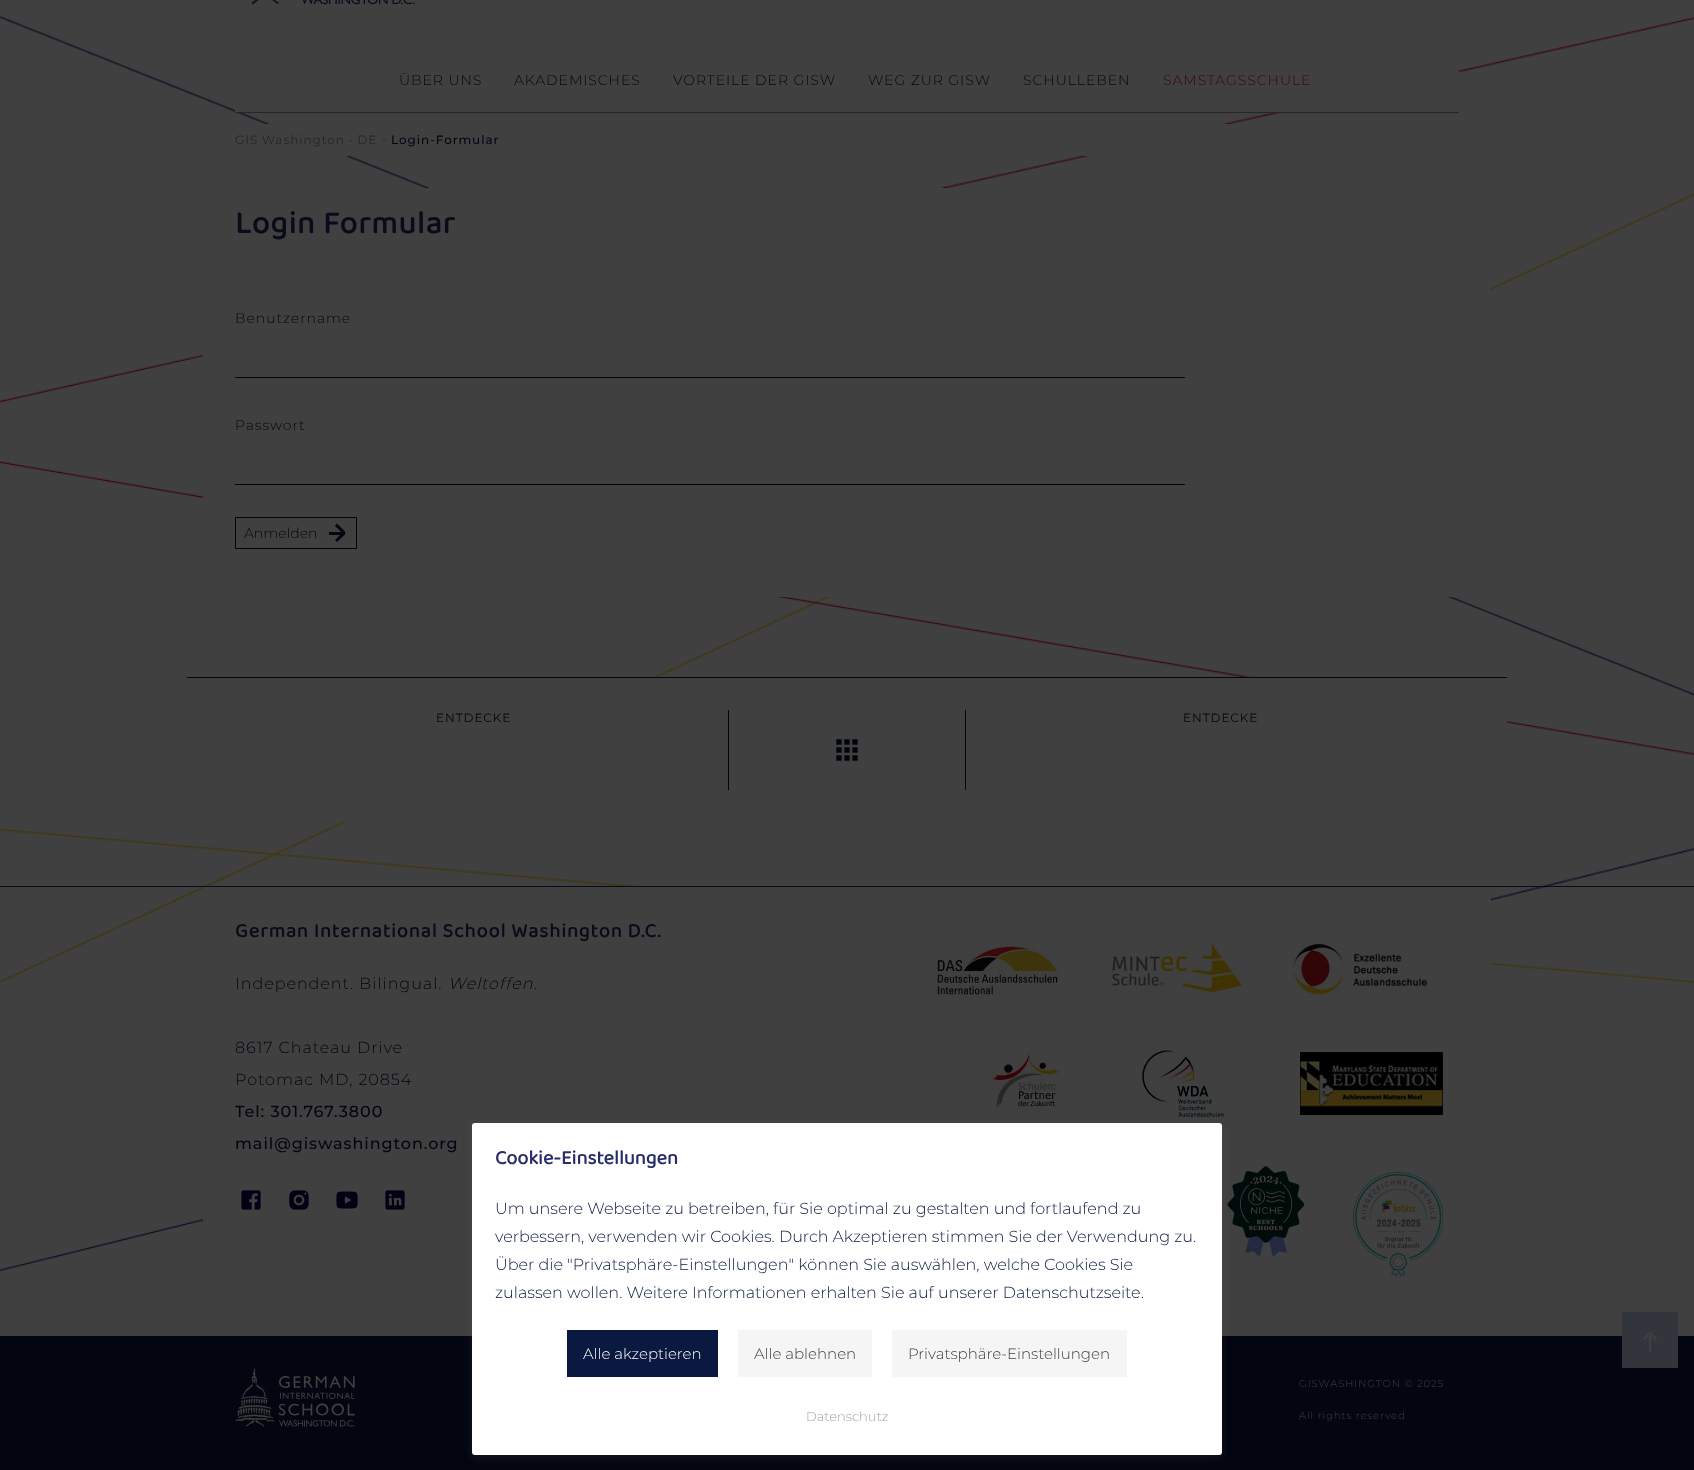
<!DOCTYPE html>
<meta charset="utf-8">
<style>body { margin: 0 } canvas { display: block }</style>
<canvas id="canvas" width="1694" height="1470"></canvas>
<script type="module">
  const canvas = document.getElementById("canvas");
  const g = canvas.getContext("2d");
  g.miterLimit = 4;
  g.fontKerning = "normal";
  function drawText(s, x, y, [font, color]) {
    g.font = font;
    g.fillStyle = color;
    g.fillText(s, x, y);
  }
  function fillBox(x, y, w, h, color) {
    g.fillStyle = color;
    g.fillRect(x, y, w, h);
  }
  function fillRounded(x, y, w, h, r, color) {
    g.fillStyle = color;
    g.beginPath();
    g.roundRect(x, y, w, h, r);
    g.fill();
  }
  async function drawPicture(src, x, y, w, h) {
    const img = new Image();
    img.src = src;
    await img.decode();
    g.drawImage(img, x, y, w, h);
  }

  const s1 = ["300 14px Montserrat", "#030610"];
  const s2 = ["300 14px Montserrat", "#3B0709"];
  const s3 = ["12px Montserrat", "#262626"];
  const s4 = ["100 12px Montserrat", "#030610"];
  const s5 = ["bold 32px 'Baloo 2'", "#0A0B1A"];
  const s6 = ["12px Montserrat", "#030610"];
  const s7 = ["bold 20px 'Baloo 2'", "#0A0B1A"];
  const s8 = ["300 16px Montserrat", "#030610"];
  const s9 = ["italic 300 16px Montserrat", "#030610"];
  const s10 = ["100 16px Montserrat", "#030610"];
  const s11 = ["300 10px Montserrat", "#404040"];
  const s12 = ["bold 20px 'Baloo 2'", "#282C69"];
  const s13 = ["300 16px Montserrat", "#0A193F"];
  const s14 = ["300 15px Montserrat", "#FFFFFF"];
  const s15 = ["300 15px Montserrat", "#404040"];
  const s16 = ["300 13px Montserrat", "#A2A2A2"];

  fillBox(0, 0, 1694, 1470, "#404040");
  await drawPicture("pic1.png", 0, 16, 1694, 1255);
  fillBox(235, 70, 1224, 42, "#404040");
  await drawPicture("pic2.png", 251, 0, 164, 5);
  fillBox(235, 112, 1224, 1, "#262626");
  g.letterSpacing = "0.95px";
  drawText("ÜBER UNS", 399, 85, s1);
  drawText("AKADEMISCHES", 514, 85, s1);
  drawText("VORTEILE DER GISW", 673, 85, s1);
  drawText("WEG ZUR GISW", 868, 85, s1);
  drawText("SCHULLEBEN", 1023, 85, s1);
  drawText("SAMSTAGSSCHULE", 1163, 85, s2);
  fillBox(265, 124, 965, 32, "#404040");
  g.wordSpacing = "-0.5px";
  drawText("GIS Washington - DE", 235, 144, s3);
  g.wordSpacing = "0px";
  drawText("-", 382, 144, s3);
  drawText("Login-Formular", 391, 144, s4);
  fillBox(425, 188, 524, 75, "#404040");
  drawText("Login Formular", 235, 233, s5);
  fillBox(203, 263, 1288, 334, "#404040");
  drawText("Benutzername", 235, 323, s1);
  fillBox(235, 377, 950, 1, "#030610");
  drawText("Passwort", 235, 430, s1);
  fillBox(235, 484, 950, 1, "#030610");
  g.strokeStyle = "#030610";
  g.strokeRect(235.5, 517.5, 121, 31);
  g.letterSpacing = "0px";
  drawText("Anmelden", 244, 538, s1);
  g.beginPath();
  g.moveTo(337, 523.5);
  g.lineTo(335, 526);
  g.bezierCurveTo(343, 533.5, 343, 532, 335, 540);
  g.lineTo(337, 542);
  g.lineTo(345, 534.5);
  g.bezierCurveTo(345.5, 533.5, 345.5, 532.5, 345, 531.5);
  g.closePath();
  g.fill();
  fillBox(329, 532, 13, 3, "#030610");
  fillBox(342, 678, 1165, 144, "#404040");
  fillBox(187, 677, 1320, 1, "#030610");
  g.letterSpacing = "0.95px";
  drawText("ENTDECKE", 436, 722, s6);
  fillBox(965, 710, 1, 80, "#030610");
  fillBox(728, 710, 1, 80, "#030610");
  await drawPicture("pic3.png", 836, 739, 22, 22);
  drawText("ENTDECKE", 1183, 722, s6);
  fillBox(0, 886, 1694, 1, "#0A0B1A");
  fillBox(203, 887, 1288, 334, "#404040");
  drawText("German International School Washington D.C.", 235, 937, s7);
  drawText("Independent. Bilingual.", 235, 989, s8);
  drawText("Weltoffen.", 448, 989, s9);
  drawText("8617 Chateau Drive", 235, 1053, s8);
  drawText("Potomac MD, 20854", 235, 1085, s8);
  drawText("Tel: 301.767.3800", 235, 1117, s10);
  drawText("mail@giswashington.org", 235, 1149, s10);
  await drawPicture("pic4.png", 241, 1190, 20, 20);
  await drawPicture("pic5.png", 289, 1190, 20, 20);
  await drawPicture("pic6.png", 336, 1191, 22, 18);
  await drawPicture("pic7.png", 385, 1190, 20, 20);
  await drawPicture("pic8.png", 936, 943, 128, 57);
  await drawPicture("pic9.png", 1107, 943, 141, 56);
  await drawPicture("pic10.png", 1290, 943, 139, 56);
  await drawPicture("pic11.png", 987, 1048, 76, 64);
  await drawPicture("pic12.png", 1137, 1048, 88, 70);
  await drawPicture("pic13.png", 1300, 1052, 143, 63);
  await drawPicture("pic14.png", 1227, 1166, 78, 91);
  await drawPicture("pic15.png", 1353, 1172, 90, 105);
  fillBox(0, 1336, 1694, 134, "#030610");
  fillBox(1622, 1312, 56, 56, "#32363C");
  fillBox(1649, 1336, 2, 16, "#404040");
  g.beginPath();
  g.moveTo(1644.5, 1340);
  g.lineTo(1643, 1338.5);
  g.lineTo(1650, 1331.5);
  g.lineTo(1651.5, 1333);
  g.closePath();
  g.fill();
  g.beginPath();
  g.moveTo(1655.5, 1340);
  g.lineTo(1648.5, 1333);
  g.lineTo(1650, 1331.5);
  g.lineTo(1657, 1338.5);
  g.closePath();
  g.fill();
  await drawPicture("pic16.png", 235, 1368, 120, 59);
  drawText("GISWASHINGTON © 2025", 1299, 1387, s11);
  drawText("All rights reserved", 1299, 1419, s11);
  g.fillStyle = "rgba(99, 99, 99, 0.2)";
  g.filter = "blur(4px)";
  g.beginPath();
  g.roundRect(472, 1125, 750, 332, 3);
  g.fill();
  g.filter = "none";
  fillRounded(472, 1123, 750, 332, 3, "#FFFFFF");
  g.letterSpacing = "0px";
  drawText("Cookie-Einstellungen", 495, 1164, s12);
  drawText("Um unsere Webseite zu betreiben, für Sie optimal zu gestalten und fortlaufend zu", 495, 1214, s13);
  drawText("verbessern, verwenden wir Cookies. Durch Akzeptieren stimmen Sie der Verwendung zu.", 495, 1242, s13);
  drawText("Über die \"Privatsphäre-Einstellungen\" können Sie auswählen, welche Cookies Sie", 495, 1270, s13);
  drawText("zulassen wollen. Weitere Informationen erhalten Sie auf unserer Datenschutzseite.", 495, 1298, s13);
  fillBox(567, 1330, 151, 47, "#0A193F");
  drawText("Alle akzeptieren", 583, 1359, s14);
  fillBox(738, 1330, 134, 47, "#F5F5F5");
  drawText("Alle ablehnen", 754, 1359, s15);
  fillBox(892, 1330, 235, 47, "#F5F5F5");
  drawText("Privatsphäre-Einstellungen", 908, 1359, s15);
  drawText("Datenschutz", 806, 1421, s16);
</script>
